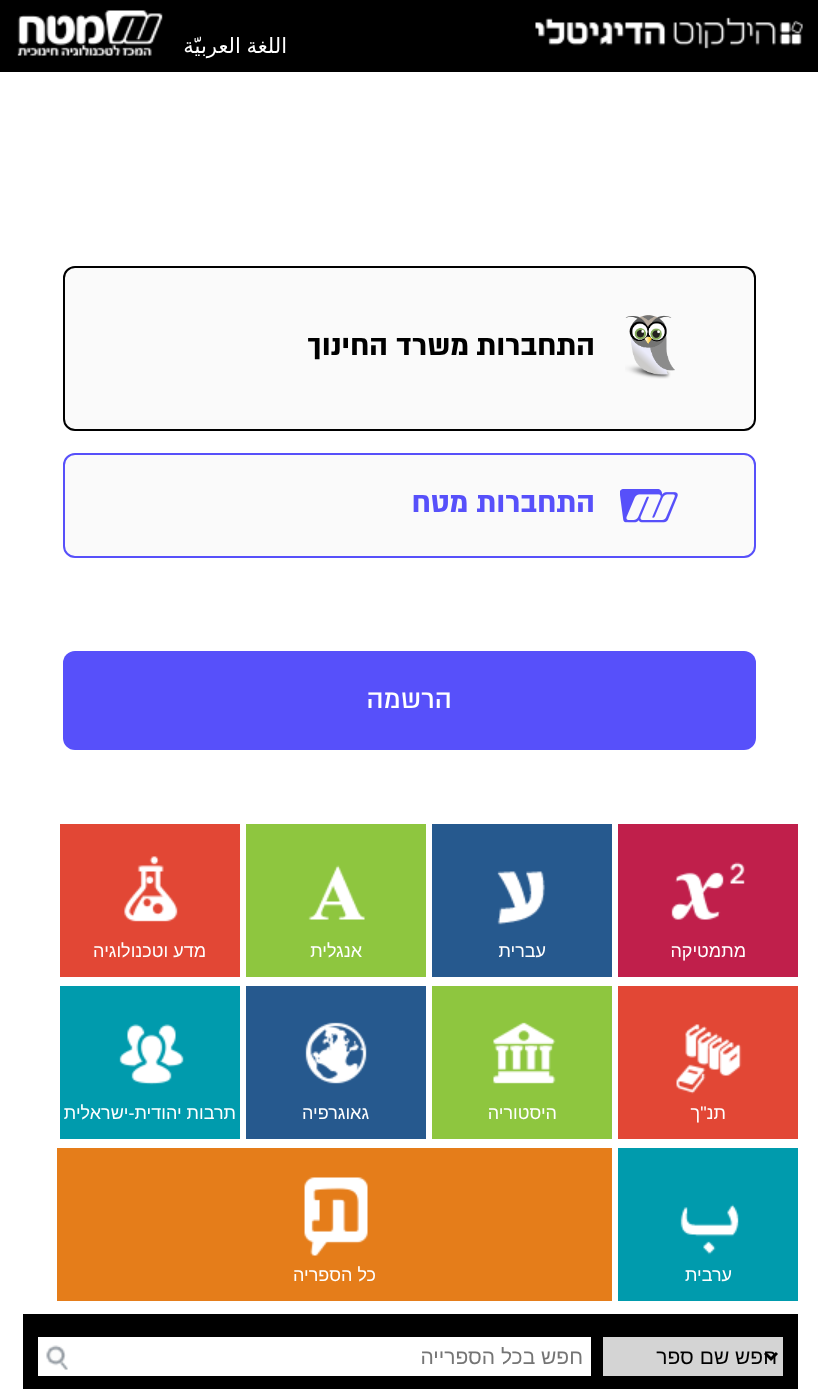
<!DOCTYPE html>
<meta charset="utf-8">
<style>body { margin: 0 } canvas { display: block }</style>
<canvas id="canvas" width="818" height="1389"></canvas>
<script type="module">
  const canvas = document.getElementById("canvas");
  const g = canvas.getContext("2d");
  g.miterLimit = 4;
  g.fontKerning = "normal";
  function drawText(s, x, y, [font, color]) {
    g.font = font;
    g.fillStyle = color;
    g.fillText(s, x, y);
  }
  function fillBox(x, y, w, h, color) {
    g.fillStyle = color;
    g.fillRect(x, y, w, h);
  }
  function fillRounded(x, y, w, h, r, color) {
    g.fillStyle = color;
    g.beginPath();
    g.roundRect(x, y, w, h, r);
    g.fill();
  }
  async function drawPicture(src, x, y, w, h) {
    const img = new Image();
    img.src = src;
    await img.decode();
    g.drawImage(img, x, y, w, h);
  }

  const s1 = ["21px DejaVu Sans", "#FFFFFF"];
  const s2 = ["bold 33px 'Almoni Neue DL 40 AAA'", "#000000"];
  const s3 = ["bold 33px 'Almoni Neue DL 40 AAA'", "#5750FA"];
  const s4 = ["500 30px 'Almoni Neue DL 40 AAA'", "#FFFFFF"];
  const s5 = ["18px Liberation Sans", "#FFFFFF"];
  const s6 = ["21px Liberation Sans", "#000000"];
  const s7 = ["21px Liberation Sans", "#757575"];

  fillBox(0, 0, 818, 1389, "#FFFFFF");
  fillBox(0, 0, 818, 72, "#000000");
  await drawPicture("pic1.png", 535, 17, 268, 32);
  g.wordSpacing = "-1px";
  g.direction = "rtl";
  drawText("اللغة العربيّة", 287, 53, s1);
  await drawPicture("pic2.png", 17, 10, 146, 46);
  g.fillStyle = "#FAFAFA";
  g.beginPath();
  g.roundRect(64, 267, 691, 163, 11);
  g.fill();
  g.strokeStyle = "#000000";
  g.lineWidth = 2;
  g.stroke();
  await drawPicture("pic3.png", 625, 315, 50, 64);
  g.wordSpacing = "0px";
  drawText("התחברות", 595, 355, s2);
  drawText("משרד החינוך", 469, 355, s2);
  g.fillStyle = "#FAFAFA";
  g.beginPath();
  g.roundRect(64, 454, 691, 103, 11);
  g.fill();
  g.strokeStyle = "#5750FA";
  g.stroke();
  await drawPicture("pic4.png", 620, 489, 58, 34);
  drawText("התחברות מטח", 595, 512, s3);
  fillRounded(63, 651, 693, 99, 12, "#5750FA");
  drawText("הרשמה", 452, 708, s4);
  fillBox(618, 824, 180, 153, "#C01F4B");
  await drawPicture("pic5.png", 671, 862, 74, 58);
  drawText("מתמטיקה", 746, 957, s5);
  fillBox(432, 824, 180, 153, "#26598E");
  await drawPicture("pic6.png", 497, 871, 48, 54);
  drawText("עברית", 546, 957, s5);
  fillBox(246, 824, 180, 153, "#8EC63F");
  await drawPicture("pic7.png", 308, 865, 57, 55);
  drawText("אנגלית", 362, 957, s5);
  fillBox(60, 824, 180, 153, "#E24735");
  await drawPicture("pic8.png", 124, 856, 54, 66);
  drawText("מדע וטכנולוגיה", 206, 957, s5);
  fillBox(618, 986, 180, 153, "#E24735");
  await drawPicture("pic9.png", 676, 1024, 66, 70);
  drawText("תנ\"ך", 726, 1119, s5);
  fillBox(432, 986, 180, 153, "#8EC63F");
  await drawPicture("pic10.png", 493, 1022, 63, 62);
  drawText("היסטוריה", 557, 1119, s5);
  fillBox(246, 986, 180, 153, "#26598E");
  await drawPicture("pic11.png", 305, 1022, 62, 62);
  drawText("גאוגרפיה", 369, 1119, s5);
  fillBox(60, 986, 180, 153, "#009BAD");
  await drawPicture("pic12.png", 119, 1024, 65, 61);
  drawText("תרבות יהודית-ישראלית", 236, 1119, s5);
  fillBox(618, 1148, 180, 153, "#009BAD");
  await drawPicture("pic13.png", 680, 1204, 59, 51);
  drawText("ערבית", 732, 1281, s5);
  fillBox(57, 1148, 555, 153, "#E57D1A");
  await drawPicture("pic14.png", 304, 1177, 64, 79);
  drawText("כל הספריה", 376, 1281, s5);
  fillBox(23, 1314, 775, 75, "#000000");
  fillBox(603, 1337, 180, 39, "#D4D4D4");
  g.beginPath();
  g.moveTo(765, 1353);
  g.lineTo(771, 1359);
  g.lineTo(777, 1353);
  g.strokeStyle = "#000000";
  g.lineWidth = 3;
  g.stroke();
  drawText("חפש שם ספר", 777, 1364, s6);
  fillBox(38, 1337, 553, 39, "#FFFFFF");
  drawText("חפש בכל הספרייה", 583, 1364, s7);
  await drawPicture("pic15.png", 46, 1345, 22, 25);
</script>
